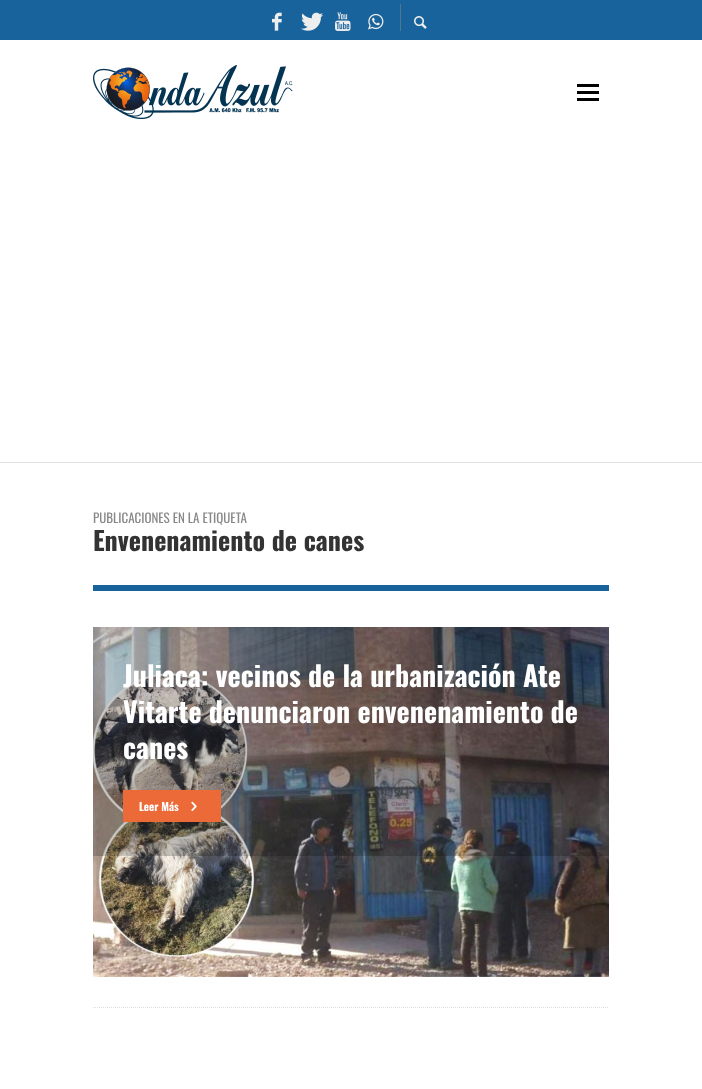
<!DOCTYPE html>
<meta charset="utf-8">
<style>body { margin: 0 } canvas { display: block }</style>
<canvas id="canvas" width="702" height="1089"></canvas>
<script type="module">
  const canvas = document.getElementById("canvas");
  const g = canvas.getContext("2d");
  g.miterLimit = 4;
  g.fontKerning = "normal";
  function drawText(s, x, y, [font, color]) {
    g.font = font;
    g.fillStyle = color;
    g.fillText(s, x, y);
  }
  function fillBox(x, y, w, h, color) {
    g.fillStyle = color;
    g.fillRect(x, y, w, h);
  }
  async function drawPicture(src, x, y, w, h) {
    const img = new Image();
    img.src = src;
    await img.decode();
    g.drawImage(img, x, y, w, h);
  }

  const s1 = ["13px Oswald", "#888888"];
  const s2 = ["bold 26px Oswald", "#333333"];
  const s3 = ["bold 28px Oswald", "#FFFFFF"];
  const s4 = ["bold 11px Oswald", "#FFFFFF"];

  fillBox(0, 0, 702, 1089, "#FFFFFF");
  fillBox(0, 462, 702, 1, "#E1E1E1");
  fillBox(0, 0, 702, 40, "#19639C");
  await drawPicture("pic1.png", 272, 12, 10, 19);
  await drawPicture("pic2.png", 301, 12, 22, 19);
  await drawPicture("pic3.png", 335, 12, 16, 19);
  await drawPicture("pic4.png", 368, 13, 16, 17);
  fillBox(400, 4, 1, 27, "#517692");
  await drawPicture("pic5.png", 414, 16, 13, 13);
  await drawPicture("pic6.png", 93, 65, 200, 54);
  fillBox(577, 91, 22, 3, "#000000");
  fillBox(577, 84, 22, 3, "#000000");
  fillBox(577, 98, 22, 3, "#000000");
  drawText("PUBLICACIONES EN LA ETIQUETA", 93, 523, s1);
  drawText("Envenenamiento de canes", 93, 551, s2);
  fillBox(93, 585, 516, 6, "#19639C");
  g.beginPath();
  g.moveTo(93, 1007.5);
  g.lineTo(609, 1007.5);
  g.strokeStyle = "#DDDDDD";
  g.setLineDash([1, 1]);
  g.stroke();
  await drawPicture("pic7.png", 93, 627, 516, 350);
  fillBox(93, 627, 516, 229, "rgba(0, 0, 0, 0.2)");
  drawText("Juliaca: vecinos de la urbanización Ate", 123, 687, s3);
  drawText("Vitarte denunciaron envenenamiento de", 123, 723, s3);
  drawText("canes", 123, 759, s3);
  fillBox(123, 790, 98, 32, "#EC6A38");
  drawText("Leer Más", 139, 811, s4);
  await drawPicture("pic8.png", 191, 801, 6, 10);
</script>
